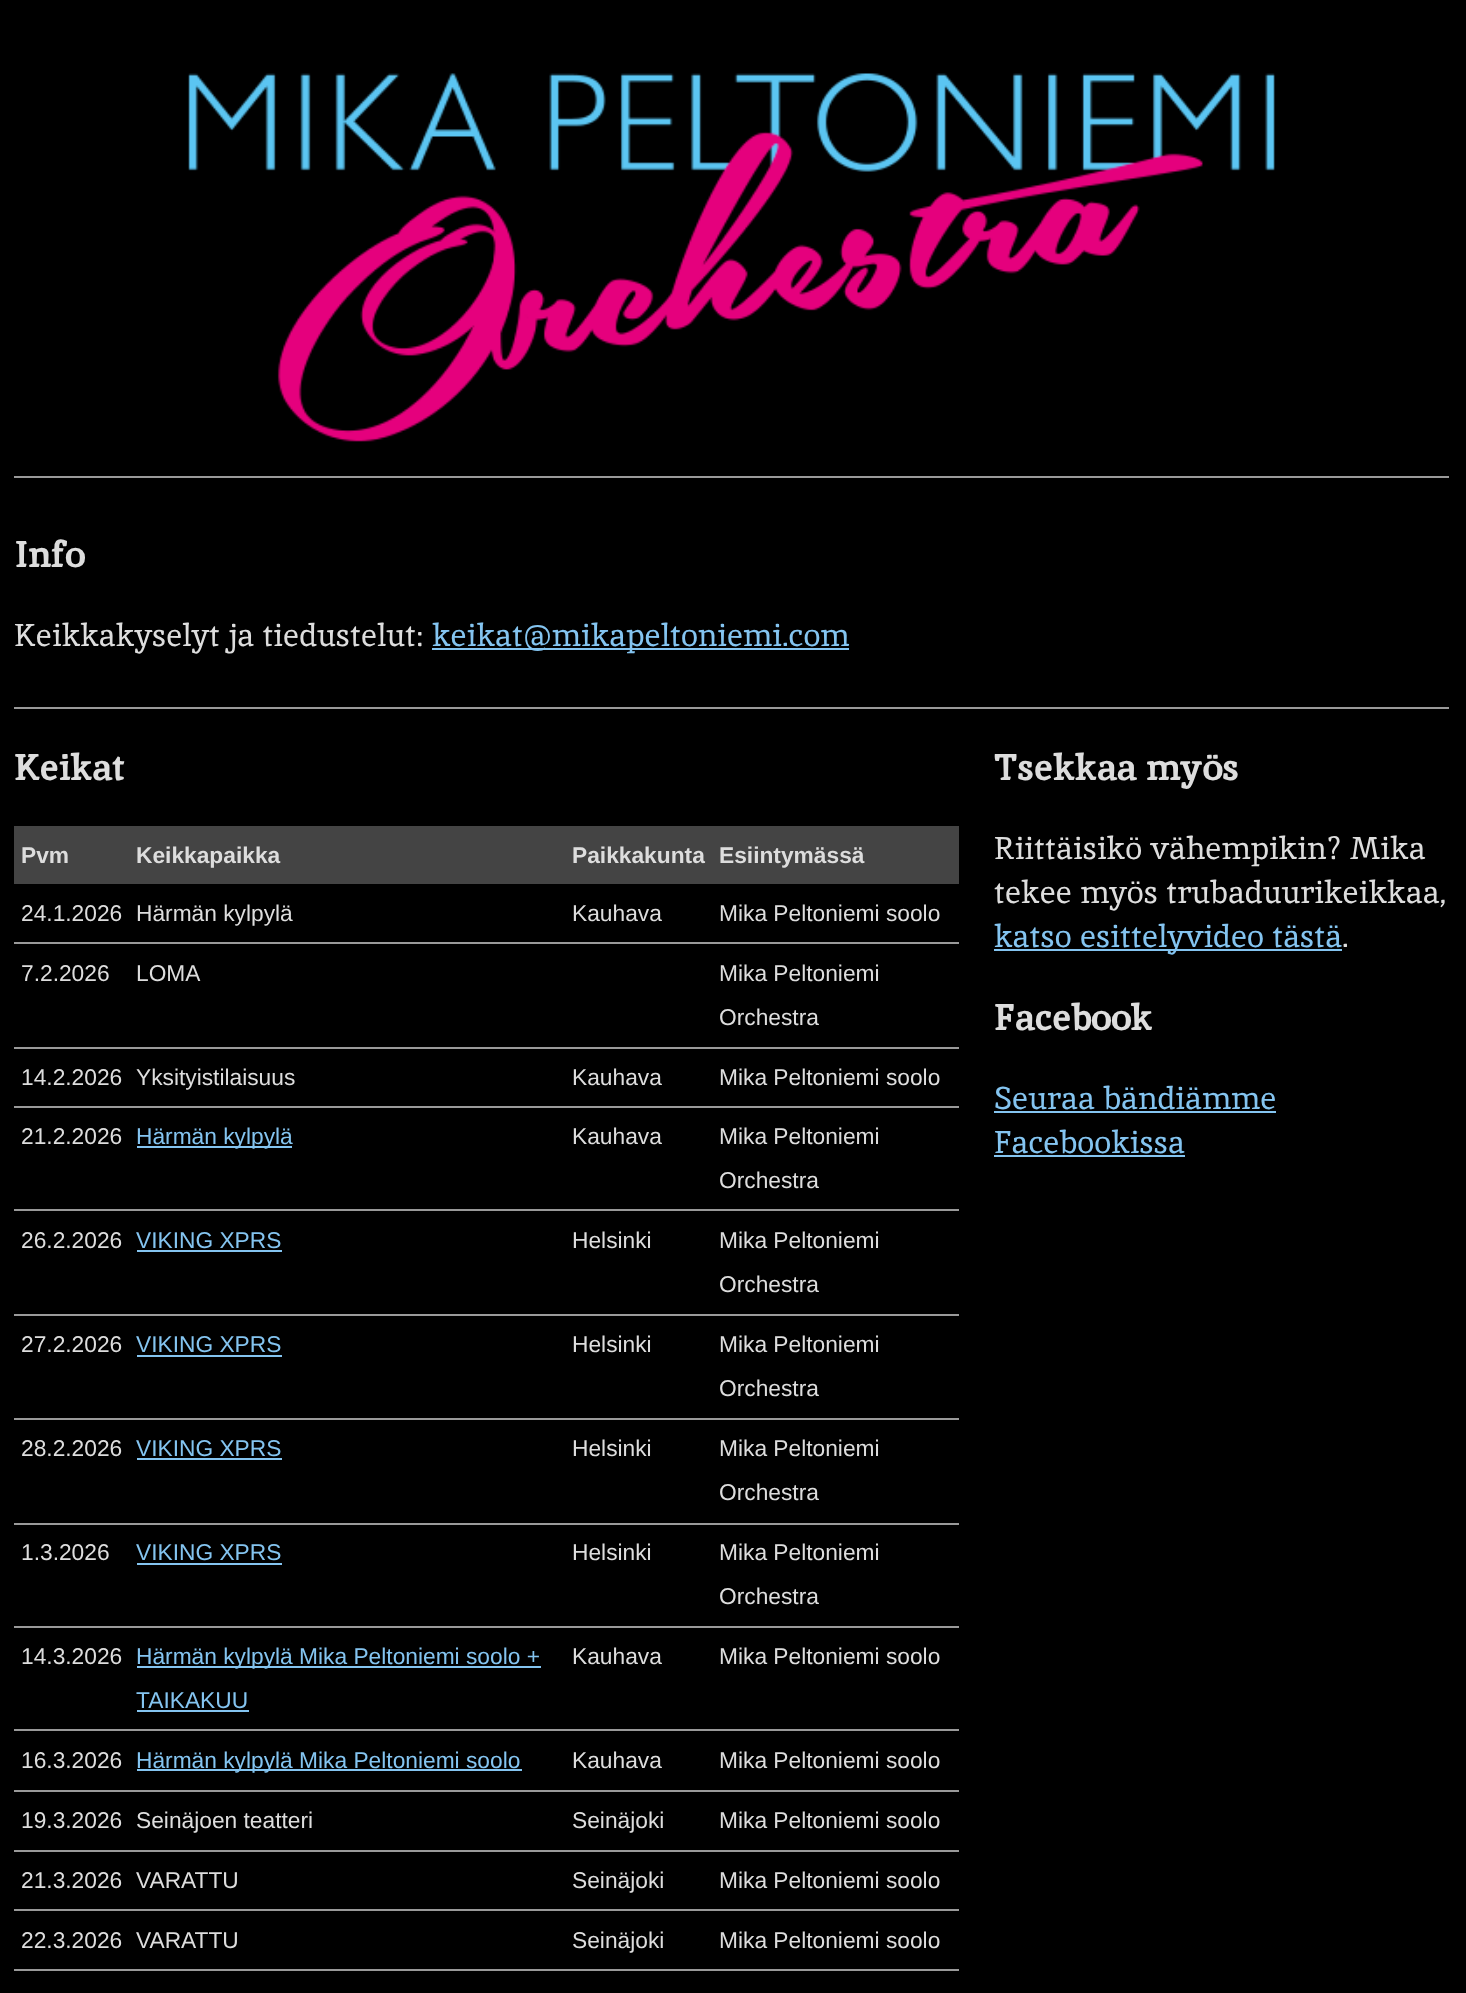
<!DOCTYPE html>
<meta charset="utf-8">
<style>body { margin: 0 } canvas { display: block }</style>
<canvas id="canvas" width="1466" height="1993"></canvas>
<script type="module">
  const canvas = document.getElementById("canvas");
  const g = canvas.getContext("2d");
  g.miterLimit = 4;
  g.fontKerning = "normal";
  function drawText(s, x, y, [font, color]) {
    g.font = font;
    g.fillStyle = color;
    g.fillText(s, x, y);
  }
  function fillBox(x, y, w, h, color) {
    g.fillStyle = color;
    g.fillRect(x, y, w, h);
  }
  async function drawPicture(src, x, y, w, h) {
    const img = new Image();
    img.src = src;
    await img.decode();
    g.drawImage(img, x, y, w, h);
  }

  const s1 = ["bold 37px Inika", "#DDDDDD"];
  const s2 = ["31.5px Inika", "#DDDDDD"];
  const s3 = ["31.5px Inika", "#84C4F0"];
  const s4 = ["bold 22.75px Liberation Sans", "#DDDDDD"];
  const s5 = ["22.75px Liberation Sans", "#DDDDDD"];
  const s6 = ["22.75px Liberation Sans", "#84C4F0"];

  fillBox(0, 0, 1466, 1993, "#000000");
  await drawPicture("pic1.png", 188, 73, 1087, 369);
  fillBox(14, 476, 1435, 2, "#999999");
  fillBox(14, 707, 1435, 2, "#999999");
  drawText("Info", 14, 567, s1);
  drawText("Keikkakyselyt ja tiedustelut:", 14, 646, s2);
  fillBox(432, 648, 417, 2, "#84C4F0");
  drawText("keikat@mikapeltoniemi.com", 432, 646, s3);
  drawText("Keikat", 14, 780, s1);
  fillBox(14, 826, 945, 58, "#444444");
  drawText("Pvm", 21, 863, s4);
  drawText("Keikkapaikka", 136, 863, s4);
  drawText("Paikkakunta", 572, 863, s4);
  drawText("Esiintymässä", 719, 863, s4);
  fillBox(14, 942, 945, 2, "#999999");
  drawText("24.1.2026", 21, 921, s5);
  drawText("Härmän kylpylä", 136, 921, s5);
  drawText("Kauhava", 572, 921, s5);
  drawText("Mika Peltoniemi soolo", 719, 921, s5);
  fillBox(14, 1047, 945, 2, "#999999");
  drawText("7.2.2026", 21, 981, s5);
  drawText("LOMA", 136, 981, s5);
  drawText("Mika Peltoniemi", 719, 981, s5);
  drawText("Orchestra", 719, 1025, s5);
  fillBox(14, 1106, 945, 2, "#999999");
  drawText("14.2.2026", 21, 1085, s5);
  drawText("Yksityistilaisuus", 136, 1085, s5);
  drawText("Kauhava", 572, 1085, s5);
  drawText("Mika Peltoniemi soolo", 719, 1085, s5);
  fillBox(14, 1209, 945, 2, "#999999");
  drawText("21.2.2026", 21, 1144, s5);
  fillBox(137, 1146, 155, 2, "#84C4F0");
  drawText("Härmän kylpylä", 136, 1144, s6);
  drawText("Kauhava", 572, 1144, s5);
  drawText("Mika Peltoniemi", 719, 1144, s5);
  drawText("Orchestra", 719, 1188, s5);
  fillBox(14, 1314, 945, 2, "#999999");
  drawText("26.2.2026", 21, 1248, s5);
  drawText("VIKING XPRS", 136, 1248, s6);
  fillBox(137, 1250, 145, 2, "#84C4F0");
  drawText("Helsinki", 572, 1248, s5);
  drawText("Mika Peltoniemi", 719, 1248, s5);
  drawText("Orchestra", 719, 1292, s5);
  fillBox(14, 1418, 945, 2, "#999999");
  drawText("27.2.2026", 21, 1352, s5);
  drawText("VIKING XPRS", 136, 1352, s6);
  fillBox(137, 1355, 145, 2, "#84C4F0");
  drawText("Helsinki", 572, 1352, s5);
  drawText("Mika Peltoniemi", 719, 1352, s5);
  drawText("Orchestra", 719, 1396, s5);
  fillBox(14, 1523, 945, 2, "#999999");
  drawText("28.2.2026", 21, 1456, s5);
  drawText("VIKING XPRS", 136, 1456, s6);
  fillBox(137, 1458, 145, 2, "#84C4F0");
  drawText("Helsinki", 572, 1456, s5);
  drawText("Mika Peltoniemi", 719, 1456, s5);
  drawText("Orchestra", 719, 1500, s5);
  fillBox(14, 1626, 945, 2, "#999999");
  drawText("1.3.2026", 21, 1560, s5);
  drawText("VIKING XPRS", 136, 1560, s6);
  fillBox(137, 1563, 145, 2, "#84C4F0");
  drawText("Helsinki", 572, 1560, s5);
  drawText("Mika Peltoniemi", 719, 1560, s5);
  drawText("Orchestra", 719, 1604, s5);
  fillBox(14, 1729, 945, 2, "#999999");
  drawText("14.3.2026", 21, 1664, s5);
  fillBox(137, 1666, 404, 2, "#84C4F0");
  drawText("Härmän kylpylä Mika Peltoniemi soolo +", 136, 1664, s6);
  drawText("TAIKAKUU", 136, 1708, s6);
  fillBox(137, 1710, 112, 2, "#84C4F0");
  drawText("Kauhava", 572, 1664, s5);
  drawText("Mika Peltoniemi soolo", 719, 1664, s5);
  fillBox(14, 1790, 945, 2, "#999999");
  drawText("16.3.2026", 21, 1768, s5);
  fillBox(137, 1769, 385, 2, "#84C4F0");
  drawText("Härmän kylpylä Mika Peltoniemi soolo", 136, 1768, s6);
  drawText("Kauhava", 572, 1768, s5);
  drawText("Mika Peltoniemi soolo", 719, 1768, s5);
  fillBox(14, 1850, 945, 2, "#999999");
  drawText("19.3.2026", 21, 1828, s5);
  drawText("Seinäjoen teatteri", 136, 1828, s5);
  drawText("Seinäjoki", 572, 1828, s5);
  drawText("Mika Peltoniemi soolo", 719, 1828, s5);
  fillBox(14, 1909, 945, 2, "#999999");
  drawText("21.3.2026", 21, 1888, s5);
  drawText("VARATTU", 136, 1888, s5);
  drawText("Seinäjoki", 572, 1888, s5);
  drawText("Mika Peltoniemi soolo", 719, 1888, s5);
  fillBox(14, 1969, 945, 2, "#999999");
  drawText("22.3.2026", 21, 1948, s5);
  drawText("VARATTU", 136, 1948, s5);
  drawText("Seinäjoki", 572, 1948, s5);
  drawText("Mika Peltoniemi soolo", 719, 1948, s5);
  drawText("Tsekkaa myös", 994, 780, s1);
  drawText("Riittäisikö vähempikin? Mika", 994, 859, s2);
  drawText("tekee myös trubaduurikeikkaa,", 994, 903, s2);
  fillBox(994, 949, 348, 2, "#84C4F0");
  drawText("katso esittelyvideo tästä", 994, 947, s3);
  drawText(".", 1342, 947, s2);
  drawText("Facebook", 994, 1030, s1);
  drawText("Seuraa bändiämme", 994, 1109, s3);
  fillBox(994, 1111, 282, 2, "#84C4F0");
  drawText("Facebookissa", 994, 1153, s3);
  fillBox(994, 1155, 191, 2, "#84C4F0");
</script>
